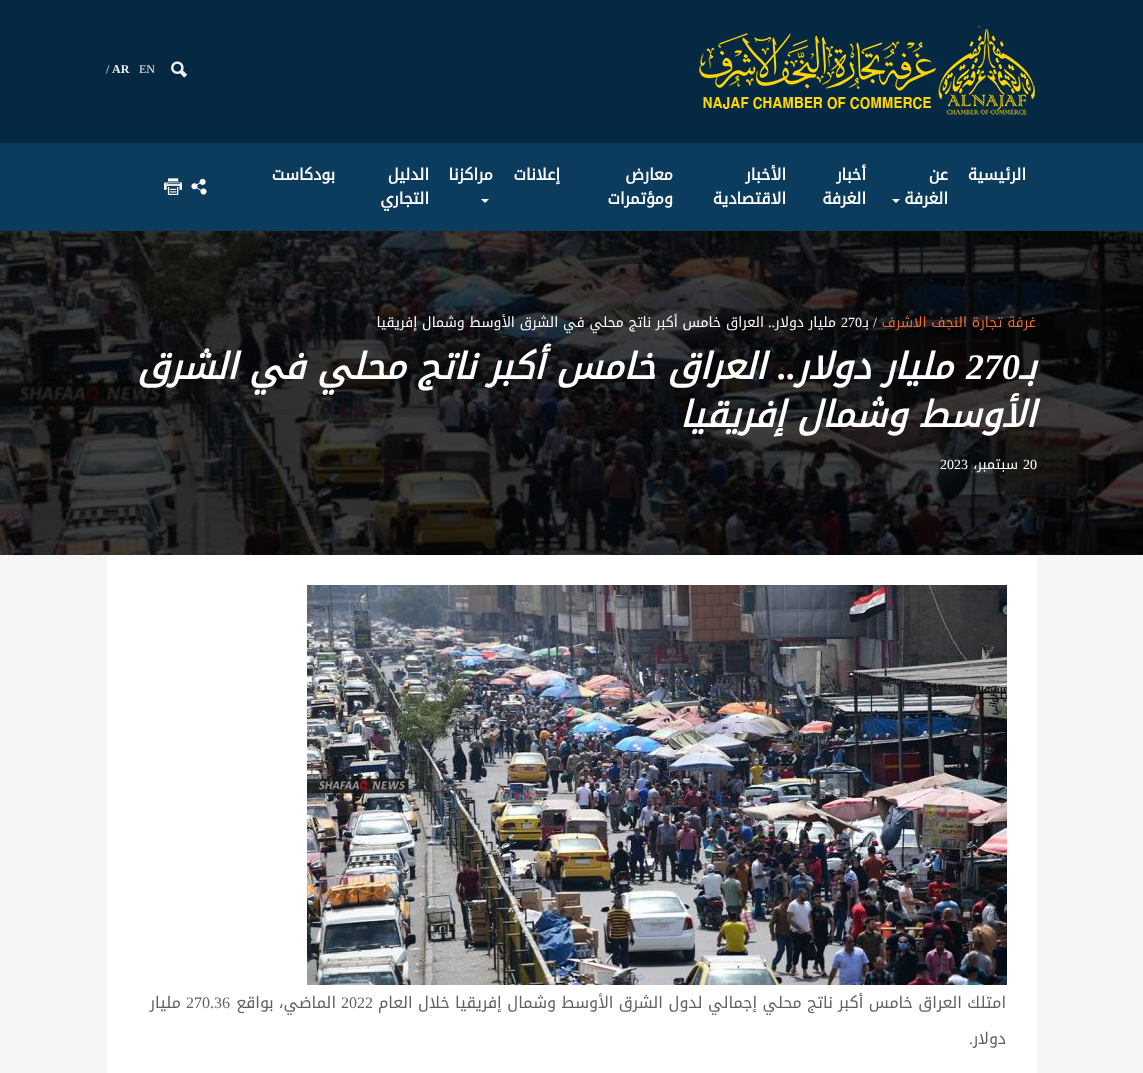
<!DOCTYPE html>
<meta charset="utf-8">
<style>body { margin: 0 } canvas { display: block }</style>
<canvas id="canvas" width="1143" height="1073"></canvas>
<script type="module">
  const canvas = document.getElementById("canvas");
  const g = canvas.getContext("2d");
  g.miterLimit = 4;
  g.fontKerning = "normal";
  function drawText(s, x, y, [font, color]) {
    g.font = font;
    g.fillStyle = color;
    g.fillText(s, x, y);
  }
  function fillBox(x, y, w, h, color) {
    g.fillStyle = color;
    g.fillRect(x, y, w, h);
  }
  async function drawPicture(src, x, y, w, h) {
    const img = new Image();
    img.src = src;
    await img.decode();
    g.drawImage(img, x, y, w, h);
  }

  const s1 = ["12px Liberation Serif", "#EEEEEE"];
  const s2 = ["bold 12px Liberation Serif", "#EEEEEE"];
  const s3 = ["bold 16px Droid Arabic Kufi", "#FFFFFF"];
  const s4 = ["14px Droid Arabic Kufi", "#EC6A37"];
  const s5 = ["14px Liberation Serif", "#FFFFFF"];
  const s6 = ["14px Droid Arabic Kufi", "#FFFFFF"];
  const s7 = ["italic bold 36px Droid Arabic Kufi", "#FFFFFF"];
  const s8 = ["italic bold 36px Liberation Serif", "#FFFFFF"];
  const s9 = ["16px Droid Arabic Kufi", "#606060"];
  const s10 = ["16px Liberation Serif", "#606060"];

  fillBox(0, 0, 1143, 1073, "#052942");
  await drawPicture("pic1.png", 699, 26, 336, 89);
  await drawPicture("pic2.png", 171, 61, 16, 17);
  drawText("EN", 139, 73, s1);
  drawText("AR", 112, 73, s2);
  drawText("/", 106, 73, s1);
  fillBox(0, 143, 1143, 88, "#0B3B5D");
  g.direction = "rtl";
  drawText("الرئيسية", 1026, 180, s3);
  drawText("عن", 948, 180, s3);
  drawText("الغرفة", 948, 204, s3);
  g.beginPath();
  g.moveTo(892, 199);
  g.lineTo(900, 199);
  g.lineTo(896, 203);
  g.closePath();
  g.fill();
  drawText("أخبار", 866, 180, s3);
  drawText("الغرفة", 866, 204, s3);
  drawText("الأخبار", 786, 180, s3);
  drawText("الاقتصادية", 786, 204, s3);
  drawText("معارض", 673, 180, s3);
  drawText("ومؤتمرات", 673, 204, s3);
  drawText("إعلانات", 560, 180, s3);
  drawText("مراكزنا", 493, 180, s3);
  g.beginPath();
  g.moveTo(481, 199);
  g.lineTo(489, 199);
  g.lineTo(485, 203);
  g.closePath();
  g.fill();
  drawText("الدليل", 429, 180, s3);
  drawText("التجاري", 429, 204, s3);
  drawText("بودكاست", 335, 180, s3);
  await drawPicture("pic3.png", 191, 178, 16, 17);
  await drawPicture("pic4.png", 164, 178, 18, 17);
  fillBox(0, 555, 1143, 518, "#F6F6F6");
  await drawPicture("pic5.png", 0, 231, 1143, 324);
  drawText("غرفة تجارة النجف الاشرف", 1036, 327, s4);
  drawText("/", 877, 327, s5);
  g.direction = "ltr";
  drawText("270", 841, 327, s5);
  g.direction = "rtl";
  drawText("بـ", 869, 327, s6);
  drawText("..", 775, 327, s5);
  drawText("مليار دولار", 836, 327, s6);
  drawText("العراق خامس أكبر ناتج محلي في الشرق الأوسط وشمال إفريقيا", 764, 327, s6);
  drawText("بـ", 1036, 379, s7);
  g.direction = "ltr";
  drawText("270", 966, 379, s8);
  g.direction = "rtl";
  drawText("..", 796, 379, s8);
  drawText("مليار دولار", 953, 379, s7);
  drawText("العراق خامس أكبر ناتج محلي في الشرق", 766, 379, s7);
  drawText("الأوسط وشمال إفريقيا", 1036, 427, s7);
  g.direction = "ltr";
  drawText("20", 1023, 469, s5);
  g.direction = "rtl";
  drawText("سبتمبر،", 1018, 469, s6);
  g.direction = "ltr";
  drawText("2023", 940, 469, s5);
  fillBox(107, 555, 930, 518, "#FFFFFF");
  await drawPicture("pic6.png", 307, 585, 700, 400);
  g.direction = "rtl";
  drawText("امتلك العراق خامس أكبر ناتج محلي إجمالي لدول الشرق الأوسط وشمال إفريقيا خلال العام", 1006, 1008, s9);
  g.direction = "ltr";
  drawText("2022", 341, 1008, s10);
  g.direction = "rtl";
  drawText("الماضي، بواقع", 336, 1008, s9);
  g.direction = "ltr";
  drawText("270.36", 186, 1008, s10);
  g.direction = "rtl";
  drawText("مليار", 181, 1008, s9);
  drawText(".", 973, 1044, s10);
  drawText("دولار", 1006, 1044, s9);
</script>
